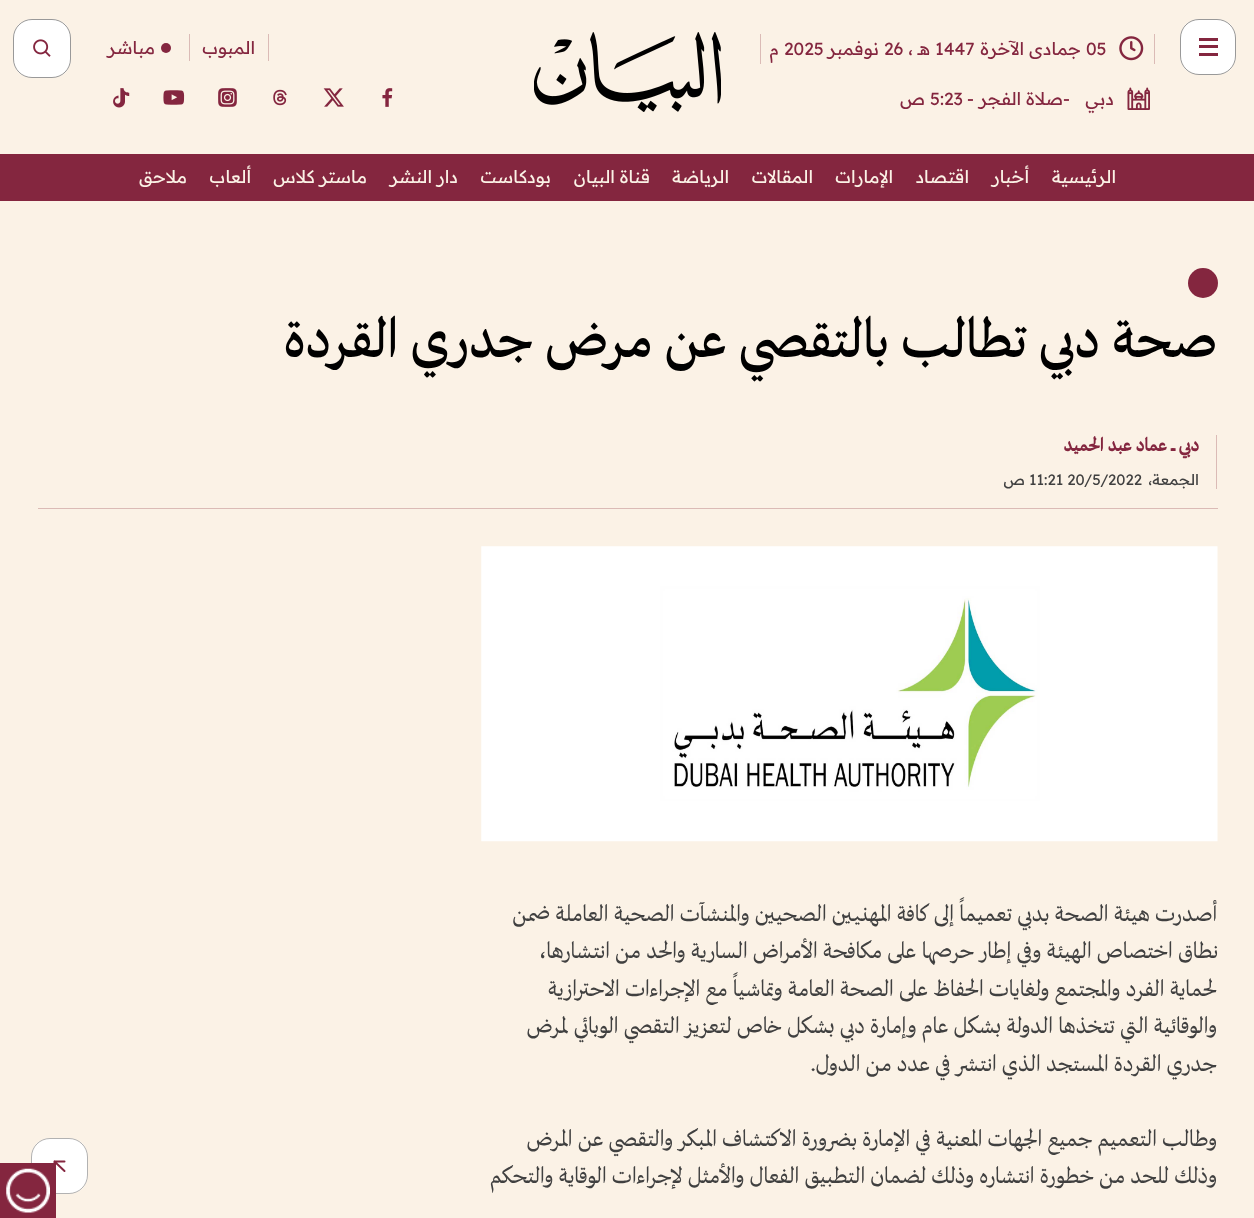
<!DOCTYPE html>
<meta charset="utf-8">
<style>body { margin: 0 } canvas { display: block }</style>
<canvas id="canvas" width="1254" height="1218"></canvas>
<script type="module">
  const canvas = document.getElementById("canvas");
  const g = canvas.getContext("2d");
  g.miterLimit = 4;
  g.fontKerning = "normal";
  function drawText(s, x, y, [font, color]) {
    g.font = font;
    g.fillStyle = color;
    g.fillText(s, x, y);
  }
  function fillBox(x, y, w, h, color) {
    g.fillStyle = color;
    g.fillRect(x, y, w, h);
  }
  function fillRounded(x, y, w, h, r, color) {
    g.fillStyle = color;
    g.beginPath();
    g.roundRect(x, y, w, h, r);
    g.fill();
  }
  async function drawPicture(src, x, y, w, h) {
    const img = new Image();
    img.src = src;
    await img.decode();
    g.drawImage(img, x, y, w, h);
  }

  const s1 = ["17.5px Readex Pro", "#84263F"];
  const s2 = ["17.5px Readex Pro", "#FBF2E6"];
  const s3 = ["500 60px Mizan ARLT", "#000000"];
  const s4 = ["bold 20px Mizan ARLT", "#84263F"];
  const s5 = ["15px Readex Pro", "#404040"];
  const s6 = ["25px Mizan ARLT", "#404040"];

  fillBox(0, 0, 1254, 1218, "#FBF2E6");
  fillRounded(1180, 19, 56, 56, 19, "#FFFFFF");
  g.beginPath();
  g.roundRect(1180.5, 19.5, 55, 55, 18.5);
  g.strokeStyle = "rgba(0, 0, 0, 0.4)";
  g.stroke();
  fillBox(1199, 38, 19, 3, "#84263F");
  fillBox(1199, 45, 19, 3, "#84263F");
  fillBox(1199, 53, 19, 3, "#84263F");
  fillBox(1154, 34, 1, 30, "#DBBBB6");
  fillBox(760, 34, 1, 30, "#DBBBB6");
  await drawPicture("pic1.png", 1119, 36, 25, 25);
  drawText("05", 1086, 55, s1);
  g.direction = "rtl";
  drawText("جمادى الآخرة", 1081, 55, s1);
  g.direction = "ltr";
  drawText("1447", 935, 55, s1);
  g.direction = "rtl";
  drawText("هـ ،", 930, 55, s1);
  g.direction = "ltr";
  drawText("26", 884, 55, s1);
  g.direction = "rtl";
  drawText("نوفمبر", 879, 55, s1);
  g.direction = "ltr";
  drawText("2025", 784, 55, s1);
  g.direction = "rtl";
  drawText("م", 779, 55, s1);
  await drawPicture("pic2.png", 1127, 87, 23, 23);
  drawText("دبي", 1114, 105, s1);
  g.direction = "ltr";
  drawText("-", 1063, 105, s1);
  g.direction = "rtl";
  drawText("صلاة الفجر", 1063, 105, s1);
  g.direction = "ltr";
  drawText("-", 967, 105, s1);
  drawText("5:23", 930, 105, s1);
  g.direction = "rtl";
  drawText("ص", 925, 105, s1);
  await drawPicture("pic3.png", 534, 32, 187, 80);
  fillBox(268, 34, 1, 27, "#DBBBB6");
  fillBox(189, 34, 1, 27, "#DBBBB6");
  drawText("المبوب", 255, 54, s1);
  g.beginPath();
  g.arc(166, 48, 5, 0, Math.PI * 2);
  g.fill();
  drawText("مباشر", 155, 54, s1);
  await drawPicture("pic4.png", 382, 88, 11, 19);
  await drawPicture("pic5.png", 323, 88, 21, 19);
  await drawPicture("pic6.png", 273, 89, 14, 17);
  await drawPicture("pic7.png", 218, 88, 19, 19);
  await drawPicture("pic8.png", 163, 90, 22, 15);
  await drawPicture("pic9.png", 113, 88, 17, 20);
  fillRounded(13, 19, 58, 59, 19, "#FFFFFF");
  g.beginPath();
  g.roundRect(13.5, 19.5, 57, 58, 18.5);
  g.stroke();
  await drawPicture("pic10.png", 33, 39, 18, 18);
  fillBox(0, 154, 1254, 47, "#84263F");
  drawText("الرئيسية", 1116, 183, s2);
  drawText("أخبار", 1029, 183, s2);
  drawText("اقتصاد", 969, 183, s2);
  drawText("الإمارات", 893, 183, s2);
  drawText("المقالات", 813, 183, s2);
  drawText("الرياضة", 729, 183, s2);
  drawText("قناة البيان", 650, 183, s2);
  drawText("بودكاست", 551, 183, s2);
  drawText("دار النشر", 458, 183, s2);
  drawText("ماستر كلاس", 367, 183, s2);
  drawText("ألعاب", 251, 183, s2);
  drawText("ملاحق", 187, 183, s2);
  g.fillStyle = "#84263F";
  g.beginPath();
  g.arc(1203, 283, 15, 0, Math.PI * 2);
  g.fill();
  drawText("صحة دبي تطالب بالتقصي عن مرض جدري القردة", 1217, 357, s3);
  fillBox(38, 508, 1180, 1, "#DBBBB6");
  fillBox(1216, 435, 1, 54, "#DBBBB6");
  drawText("دبي ـــ عماد عبد الحميد", 1199, 451, s4);
  drawText("الجمعة،", 1199, 485, s5);
  g.direction = "ltr";
  drawText("11:21 20/5/2022", 1029, 485, s5);
  g.direction = "rtl";
  drawText("ص", 1025, 485, s5);
  fillRounded(31, 1138, 57, 56, 19, "#FFFFFF");
  g.beginPath();
  g.roundRect(31.5, 1138.5, 56, 55, 18.5);
  g.strokeStyle = "rgba(0, 0, 0, 0.3)";
  g.stroke();
  g.beginPath();
  g.moveTo(64.5, 1171);
  g.lineTo(54.5, 1161.5);
  g.moveTo(54.5, 1171);
  g.lineTo(54.5, 1161.5);
  g.lineTo(64.5, 1161.5);
  g.strokeStyle = "#84263F";
  g.lineWidth = 2;
  g.lineCap = "round";
  g.lineJoin = "round";
  g.stroke();
  await drawPicture("pic11.png", 481, 546, 737, 296);
  drawText("أصدرت هيئة الصحة بدبي تعميماً إلى كافة المهنيين الصحيين والمنشآت الصحية العاملة ضمن", 1217, 921, s6);
  drawText("نطاق اختصاص الهيئة وفي إطار حرصها على مكافحة الأمراض السارية والحد من انتشارها،", 1218, 958, s6);
  drawText("لحماية الفرد والمجتمع ولغايات الحفاظ على الصحة العامة وتماشياً مع الإجراءات الاحترازية", 1217, 996, s6);
  drawText("والوقائية التي تتخذها الدولة بشكل عام وإمارة دبي بشكل خاص لتعزيز التقصي الوبائي لمرض", 1217, 1033, s6);
  drawText("جدري القردة المستجد الذي انتشر في عدد من الدول.", 1217, 1071, s6);
  drawText("وطالب التعميم جميع الجهات المعنية في الإمارة بضرورة الاكتشاف المبكر والتقصي عن المرض", 1217, 1146, s6);
  drawText("وذلك للحد من خطورة انتشاره وذلك لضمان التطبيق الفعال والأمثل لإجراءات الوقاية والتحكم", 1217, 1183, s6);
  fillBox(0, 1163, 56, 55, "#84263F");
  await drawPicture("pic12.png", 6, 1168, 44, 45);
</script>
